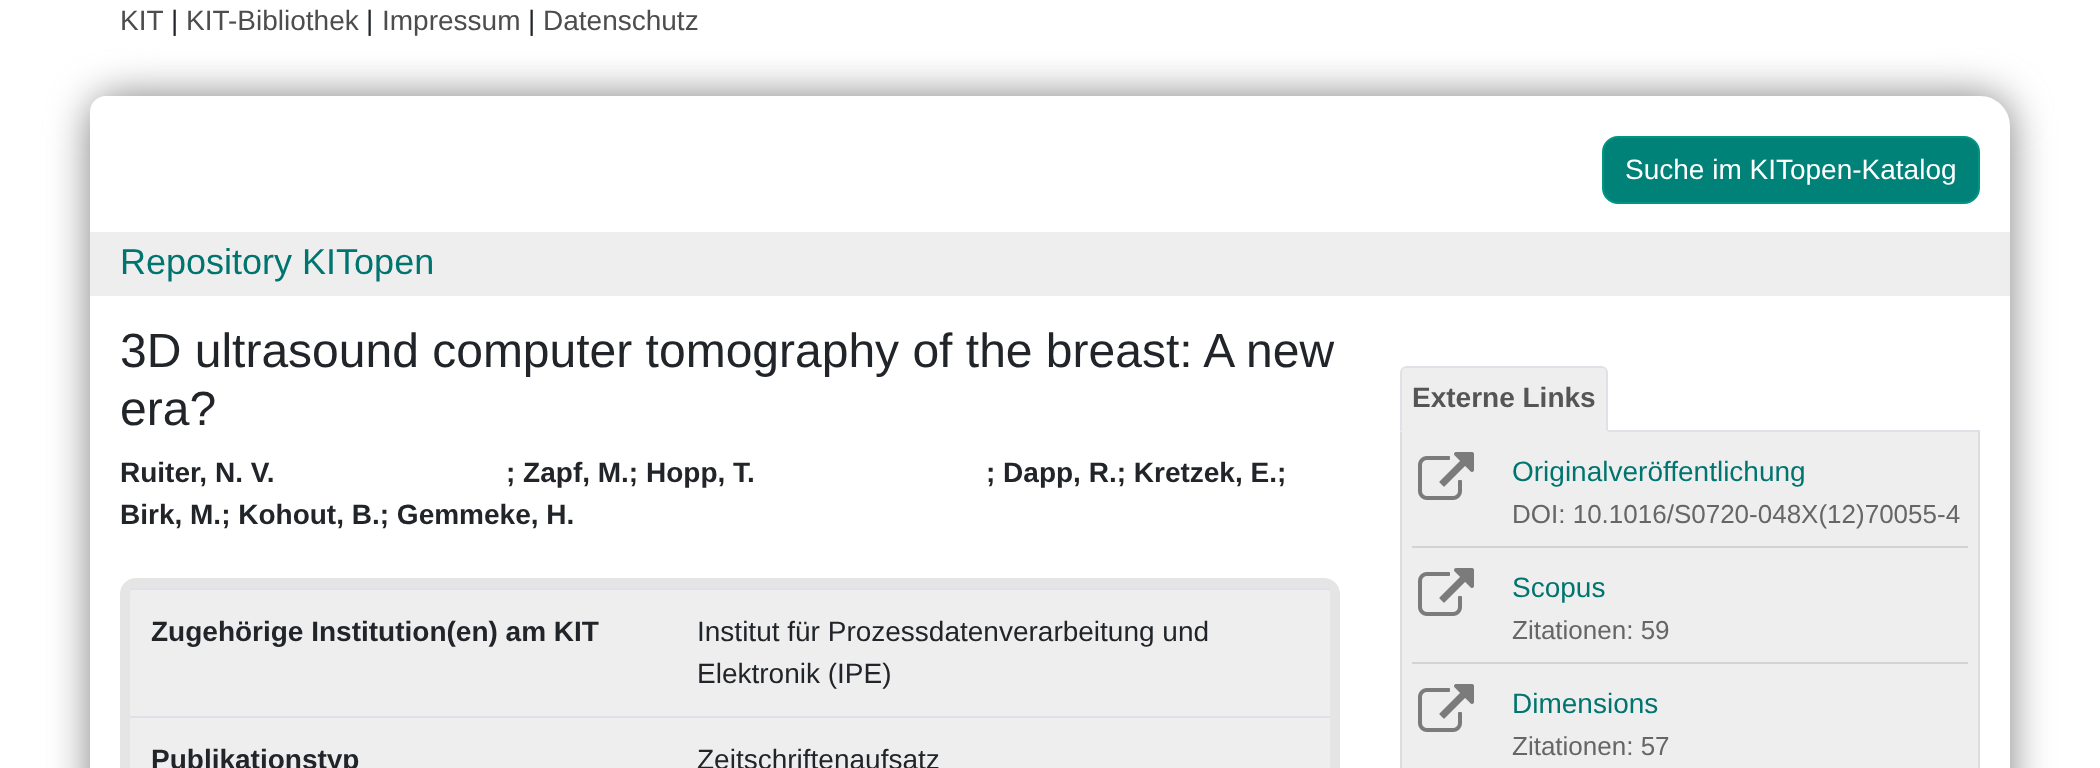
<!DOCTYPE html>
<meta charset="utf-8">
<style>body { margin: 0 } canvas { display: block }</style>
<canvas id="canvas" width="2100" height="768"></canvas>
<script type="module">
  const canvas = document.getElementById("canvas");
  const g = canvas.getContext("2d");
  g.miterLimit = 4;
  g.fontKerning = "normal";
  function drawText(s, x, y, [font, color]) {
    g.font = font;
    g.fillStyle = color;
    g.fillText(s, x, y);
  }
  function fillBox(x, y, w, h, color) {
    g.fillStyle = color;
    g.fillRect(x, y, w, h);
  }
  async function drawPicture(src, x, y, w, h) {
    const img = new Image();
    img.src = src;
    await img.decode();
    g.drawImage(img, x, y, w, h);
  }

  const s1 = ["28px Liberation Sans", "#4D4D4D"];
  const s2 = ["28px Liberation Sans", "#212529"];
  const s3 = ["28px Liberation Sans", "#FFFFFF"];
  const s4 = ["36px Liberation Sans", "#007570"];
  const s5 = ["48px Liberation Sans", "#212529"];
  const s6 = ["bold 28px Liberation Sans", "#212529"];
  const s7 = ["bold 28px Liberation Sans", "#555555"];
  const s8 = ["28px Liberation Sans", "#007570"];
  const s9 = ["26px Liberation Sans", "#666666"];

  fillBox(0, 0, 2100, 768, "#FFFFFF");
  drawText("KIT", 120, 30, s1);
  g.save();
  g.beginPath();
  g.moveTo(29, 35);
  g.lineTo(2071, 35);
  g.lineTo(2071, 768);
  g.lineTo(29, 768);
  g.closePath();
  g.moveTo(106, 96);
  g.lineTo(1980, 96);
  g.bezierCurveTo(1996.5, 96, 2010, 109.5, 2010, 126);
  g.lineTo(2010, 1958);
  g.bezierCurveTo(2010, 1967, 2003, 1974, 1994, 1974);
  g.lineTo(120, 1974);
  g.bezierCurveTo(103.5, 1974, 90, 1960.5, 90, 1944);
  g.lineTo(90, 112);
  g.bezierCurveTo(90, 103, 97, 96, 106, 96);
  g.closePath();
  g.clip("evenodd");
  g.fillStyle = "#808080";
  g.filter = "blur(20px)";
  g.beginPath();
  g.roundRect(90, 96, 1920, 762, 30);
  g.fill();
  g.filter = "none";
  g.restore();
  drawText("|", 171, 30, s2);
  drawText("KIT-Bibliothek", 186, 30, s1);
  drawText("|", 366, 30, s2);
  drawText("Impressum", 382, 30, s1);
  drawText("|", 528, 30, s2);
  drawText("Datenschutz", 543, 30, s1);
  g.fillStyle = "#008278";
  g.beginPath();
  g.roundRect(1603, 137, 376, 66, 15);
  g.fill();
  g.strokeStyle = "#009682";
  g.lineWidth = 2;
  g.stroke();
  drawText("Suche im KITopen-Katalog", 1625, 179, s3);
  fillBox(90, 232, 1920, 64, "#EEEEEE");
  drawText("Repository KITopen", 120, 274, s4);
  drawText("3D ultrasound computer tomography of the breast: A new", 120, 367, s5);
  drawText("era?", 120, 425, s5);
  drawText("Ruiter, N. V.", 120, 482, s6);
  drawText("; Zapf, M.; Hopp, T.", 506, 482, s6);
  drawText("; Dapp, R.; Kretzek, E.;", 986, 482, s6);
  drawText("Birk, M.; Kohout, B.; Gemmeke, H.", 120, 524, s6);
  g.fillStyle = "#EEEEEE";
  g.beginPath();
  g.roundRect(125, 583, 1210, 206, 11);
  g.fill();
  g.strokeStyle = "#E5E5E5";
  g.lineWidth = 10;
  g.stroke();
  drawText("Zugehörige Institution(en) am KIT", 151, 641, s6);
  fillBox(130, 588, 1200, 2, "#DEE2E6");
  drawText("Institut für Prozessdatenverarbeitung und", 697, 641, s2);
  drawText("Elektronik (IPE)", 697, 683, s2);
  drawText("Publikationstyp", 151, 769, s6);
  fillBox(130, 716, 1200, 2, "#DEE2E6");
  drawText("Zeitschriftenaufsatz", 697, 769, s2);
  fillBox(1608, 430, 372, 2, "#DEE2E6");
  g.fillStyle = "#EEEEEE";
  g.beginPath();
  g.roundRect(1400, 366, 208, 66, [8, 8, 0, 0]);
  g.fill();
  g.fillStyle = "#DEE2E6";
  g.beginPath();
  g.moveTo(1407, 366);
  g.bezierCurveTo(1405, 366, 1403, 367, 1402, 368);
  g.lineTo(1403, 369);
  g.bezierCurveTo(1404, 368, 1406, 368, 1407, 368);
  g.lineTo(1601, 368);
  g.bezierCurveTo(1602, 368, 1604, 368, 1605, 369);
  g.lineTo(1606, 368);
  g.bezierCurveTo(1605, 367, 1603, 366, 1601, 366);
  g.closePath();
  g.fill();
  g.beginPath();
  g.moveTo(1608, 432);
  g.lineTo(1608, 373);
  g.bezierCurveTo(1608, 371, 1607, 369, 1606, 368);
  g.lineTo(1605, 369);
  g.bezierCurveTo(1606, 370, 1606, 372, 1606, 373);
  g.lineTo(1606, 430);
  g.closePath();
  g.fill();
  g.fillStyle = "#EEEEEE";
  g.beginPath();
  g.moveTo(1608, 432);
  g.lineTo(1606, 430);
  g.lineTo(1402, 430);
  g.lineTo(1400, 432);
  g.closePath();
  g.fill();
  g.fillStyle = "#DEE2E6";
  g.beginPath();
  g.moveTo(1400, 432);
  g.lineTo(1402, 430);
  g.lineTo(1402, 373);
  g.bezierCurveTo(1402, 372, 1402, 370, 1403, 369);
  g.lineTo(1402, 368);
  g.bezierCurveTo(1401, 369, 1400, 371, 1400, 373);
  g.closePath();
  g.fill();
  drawText("Externe Links", 1412, 407, s7);
  fillBox(1402, 432, 576, 336, "#EEEEEE");
  fillBox(1978, 432, 2, 336, "#DDDDDD");
  fillBox(1400, 432, 2, 336, "#DDDDDD");
  fillBox(1412, 546, 556, 2, "#D3D3D3");
  await drawPicture("pic1.png", 1418, 452, 56, 48);
  drawText("Originalveröffentlichung", 1512, 481, s8);
  drawText("DOI: 10.1016/S0720-048X(12)70055-4", 1512, 523, s9);
  fillBox(1412, 662, 556, 2, "#D3D3D3");
  await drawPicture("pic1.png", 1418, 568, 56, 48);
  drawText("Scopus", 1512, 597, s8);
  drawText("Zitationen: 59", 1512, 639, s9);
  await drawPicture("pic1.png", 1418, 684, 56, 48);
  drawText("Dimensions", 1512, 713, s8);
  drawText("Zitationen: 57", 1512, 755, s9);
</script>
